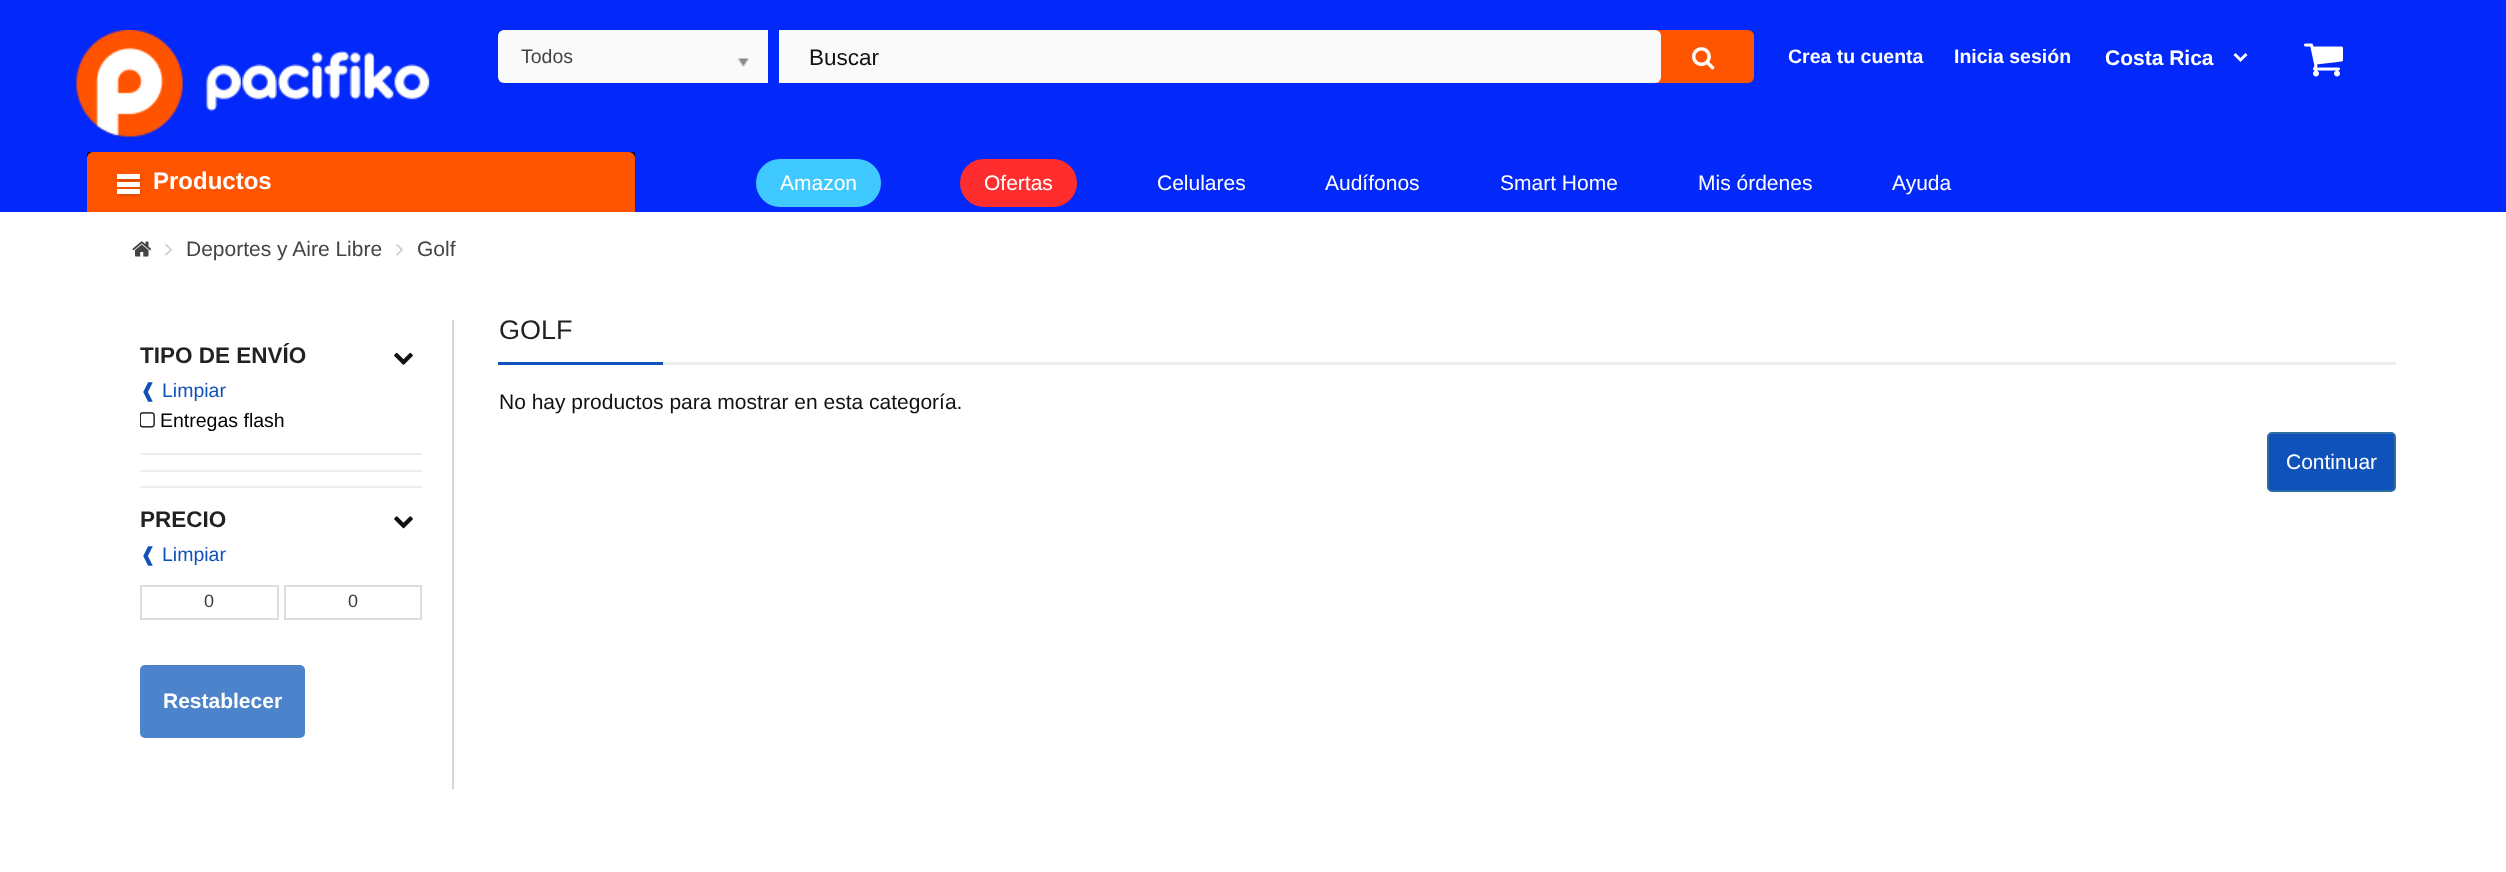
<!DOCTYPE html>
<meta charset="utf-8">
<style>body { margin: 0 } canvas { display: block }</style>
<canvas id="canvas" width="2506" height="872"></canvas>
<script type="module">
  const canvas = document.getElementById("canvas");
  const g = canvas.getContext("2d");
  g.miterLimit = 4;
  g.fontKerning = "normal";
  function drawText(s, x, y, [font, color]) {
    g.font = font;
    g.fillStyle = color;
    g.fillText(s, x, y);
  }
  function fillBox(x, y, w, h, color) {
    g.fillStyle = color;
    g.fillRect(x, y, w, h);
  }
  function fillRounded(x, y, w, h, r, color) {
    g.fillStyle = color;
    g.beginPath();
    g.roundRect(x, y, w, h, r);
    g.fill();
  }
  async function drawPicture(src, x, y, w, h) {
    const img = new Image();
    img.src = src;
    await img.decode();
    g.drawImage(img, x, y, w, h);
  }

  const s1 = ["19.5px Liberation Sans", "#444444"];
  const s2 = ["22.5px Liberation Sans", "#111111"];
  const s3 = ["bold 19.5px Liberation Sans", "#FFFFFF"];
  const s4 = ["bold 21px Liberation Sans", "#FFFFFF"];
  const s5 = ["bold 24px Liberation Sans", "#FFFFFF"];
  const s6 = ["21px Liberation Sans", "#FFFFFF"];
  const s7 = ["21px Liberation Sans", "#444444"];
  const s8 = ["bold 22.5px Liberation Sans", "#222222"];
  const s9 = ["19.5px DejaVu Sans", "#0F52BA"];
  const s10 = ["19.5px Liberation Sans", "#0F52BA"];
  const s11 = ["19.5px Liberation Sans", "#000000"];
  const s12 = ["18px Liberation Sans", "#3D3D3D"];
  const s13 = ["27px Liberation Sans", "#222222"];
  const s14 = ["21px Liberation Sans", "#111111"];

  fillBox(0, 0, 2506, 872, "#FFFFFF");
  fillBox(0, 0, 2506, 212, "#0328FA");
  await drawPicture("pic1.png", 76, 30, 354, 107);
  fillRounded(498, 30, 231, 53, 6, "#FAFAFA");
  drawText("Todos", 521, 63, s1);
  fillBox(723, 30, 45, 53, "#FAFAFA");
  await drawPicture("pic2.png", 737, 58, 12, 9);
  g.fillStyle = "#FF5500";
  g.beginPath();
  g.roundRect(1654, 31, 99, 51, [0, 5, 5, 0]);
  g.fill();
  g.strokeStyle = "#FF5500";
  g.lineWidth = 2;
  g.stroke();
  g.fillStyle = "#FAFAFA";
  g.beginPath();
  g.roundRect(779, 30, 882, 53, [0, 6, 6, 0]);
  g.fill();
  drawText("Buscar", 809, 65, s2);
  await drawPicture("pic3.png", 1692, 47, 23, 23);
  drawText("Crea tu cuenta", 1788, 63, s3);
  drawText("Inicia sesión", 1954, 63, s3);
  g.beginPath();
  g.moveTo(2234.5, 54);
  g.lineTo(2240.5, 60);
  g.lineTo(2246.5, 54);
  g.strokeStyle = "#FFFFFF";
  g.lineWidth = 3;
  g.stroke();
  drawText("Costa Rica", 2105, 65, s4);
  await drawPicture("pic4.png", 2304, 43, 39, 34);
  fillRounded(87, 152, 548, 60, 3, "#000000");
  g.fillStyle = "#FF5500";
  g.beginPath();
  g.roundRect(87, 152, 548, 60, [6, 6, 0, 0]);
  g.fill();
  g.fillStyle = "rgba(0, 0, 0, 0.15)";
  g.filter = "blur(1.5px)";
  g.beginPath();
  g.rect(119, 176, 22, 5);
  g.fill();
  g.filter = "none";
  fillBox(117, 174, 23, 5, "#FFFFFF");
  g.fillStyle = "rgba(0, 0, 0, 0.15)";
  g.filter = "blur(1.5px)";
  g.beginPath();
  g.rect(119, 183, 22, 5);
  g.fill();
  g.filter = "none";
  fillBox(117, 182, 23, 5, "#FFFFFF");
  g.fillStyle = "rgba(0, 0, 0, 0.15)";
  g.filter = "blur(1.5px)";
  g.beginPath();
  g.rect(119, 191, 22, 5);
  g.fill();
  g.filter = "none";
  fillBox(117, 189, 23, 5, "#FFFFFF");
  drawText("Productos", 153, 189, s5);
  g.fillStyle = "#40C9FF";
  g.beginPath();
  g.roundRect(757, 160, 123, 46, 23);
  g.fill();
  g.strokeStyle = "#40C9FF";
  g.lineWidth = 2;
  g.stroke();
  drawText("Amazon", 780, 190, s6);
  g.fillStyle = "#FF2D2D";
  g.beginPath();
  g.roundRect(961, 160, 115, 46, 23);
  g.fill();
  g.strokeStyle = "#FF2D2D";
  g.stroke();
  drawText("Ofertas", 984, 190, s6);
  drawText("Celulares", 1157, 190, s6);
  drawText("Audífonos", 1325, 190, s6);
  drawText("Smart Home", 1500, 190, s6);
  drawText("Mis órdenes", 1698, 190, s6);
  drawText("Ayuda", 1892, 190, s6);
  await drawPicture("pic5.png", 132, 241, 20, 16);
  await drawPicture("pic6.png", 165, 244, 7, 12);
  drawText("Deportes y Aire Libre", 186, 256, s7);
  await drawPicture("pic6.png", 396, 244, 7, 12);
  drawText("Golf", 417, 256, s7);
  fillBox(452, 320, 2, 469, "#D7D7D7");
  drawText("TIPO DE ENVÍO", 140, 363, s8);
  await drawPicture("pic7.png", 394, 352, 19, 13);
  drawText("❰", 140, 397, s9);
  drawText("Limpiar", 162, 397, s10);
  await drawPicture("pic8.png", 140, 412, 15, 16);
  drawText("Entregas flash", 160, 427, s11);
  fillBox(140, 453, 282, 2, "#EEEEEE");
  fillBox(140, 470, 282, 2, "#EEEEEE");
  fillBox(140, 486, 282, 2, "#EEEEEE");
  drawText("PRECIO", 140, 527, s8);
  await drawPicture("pic9.png", 394, 516, 19, 13);
  drawText("❰", 140, 561, s9);
  drawText("Limpiar", 162, 561, s10);
  g.strokeStyle = "#DDDDDD";
  g.strokeRect(141, 586, 137, 33);
  drawText("0", 204, 607, s12);
  g.strokeRect(285, 586, 136, 33);
  drawText("0", 348, 607, s12);
  fillRounded(140, 665, 165, 73, 5, "#4D83CB");
  drawText("Restablecer", 163, 708, s4);
  fillBox(663, 362, 1733, 3, "#EEEEEE");
  drawText("GOLF", 499, 339, s13);
  fillBox(498, 362, 165, 3, "#0F52BA");
  drawText("No hay productos para mostrar en esta categoría.", 499, 409, s14);
  g.fillStyle = "#0F52BA";
  g.beginPath();
  g.roundRect(2268, 433, 127, 58, 4);
  g.fill();
  g.strokeStyle = "#2E6DA4";
  g.stroke();
  drawText("Continuar", 2286, 469, s6);
</script>
